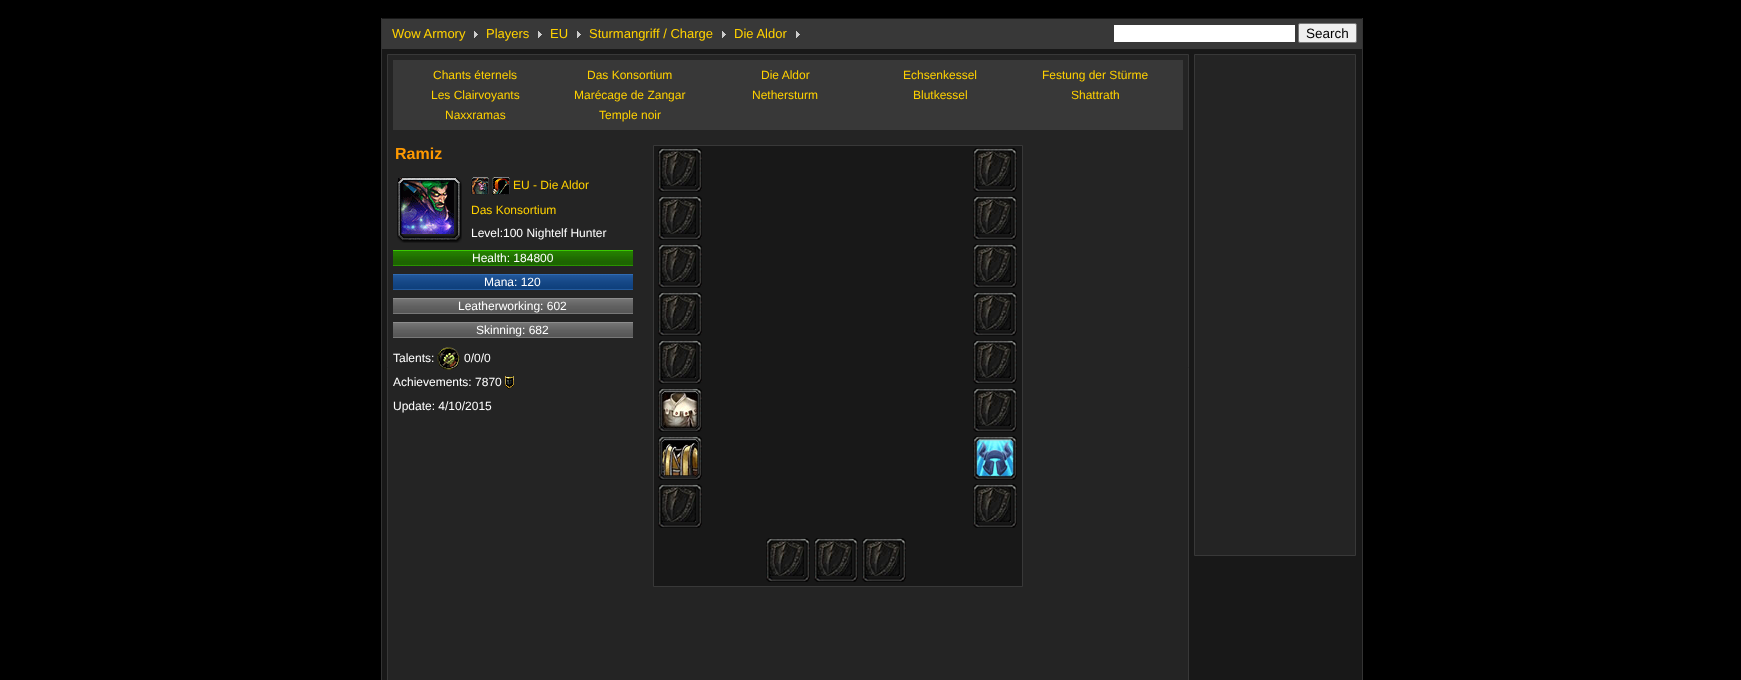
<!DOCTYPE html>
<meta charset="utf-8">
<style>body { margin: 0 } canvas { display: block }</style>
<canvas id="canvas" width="1741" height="680"></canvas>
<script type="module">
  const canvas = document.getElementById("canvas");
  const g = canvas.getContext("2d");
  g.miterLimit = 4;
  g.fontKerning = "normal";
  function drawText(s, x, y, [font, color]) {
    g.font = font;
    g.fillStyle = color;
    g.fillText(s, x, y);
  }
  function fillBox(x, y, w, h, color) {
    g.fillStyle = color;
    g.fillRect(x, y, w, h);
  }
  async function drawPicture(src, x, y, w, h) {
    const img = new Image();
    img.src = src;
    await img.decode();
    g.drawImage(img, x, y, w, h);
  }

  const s1 = ["13px Liberation Sans", "#FFD100"];
  const s2 = ["13.5px Liberation Sans", "#000000"];
  const s3 = ["12px Liberation Sans", "#FFD100"];
  const s4 = ["bold 16px Liberation Sans", "#FE9900"];
  const s5 = ["12px Liberation Sans", "#FFFFFF"];

  fillBox(0, 0, 1741, 680, "#000000");
  fillBox(382, 49, 980, 631, "#181818");
  fillBox(1362, 18, 1, 662, "#333333");
  fillBox(381, 18, 1, 662, "#333333");
  fillBox(382, 19, 980, 30, "#383838");
  fillBox(382, 18, 980, 1, "#181818");
  await drawPicture("pic1.png", 474, 31, 4, 7);
  drawText("Wow Armory", 392, 38, s1);
  await drawPicture("pic1.png", 538, 31, 4, 7);
  drawText("Players", 486, 38, s1);
  await drawPicture("pic1.png", 577, 31, 4, 7);
  drawText("EU", 550, 38, s1);
  await drawPicture("pic1.png", 722, 31, 4, 7);
  drawText("Sturmangriff / Charge", 589, 38, s1);
  await drawPicture("pic1.png", 796, 31, 4, 7);
  drawText("Die Aldor", 734, 38, s1);
  fillBox(1114, 25, 181, 17, "#FFFFFF");
  g.fillStyle = "#EFEFEF";
  g.beginPath();
  g.roundRect(1298.5, 23.5, 58, 19, 1.5);
  g.fill();
  g.strokeStyle = "#767676";
  g.stroke();
  drawText("Search", 1306, 38, s2);
  g.fillStyle = "#242424";
  g.beginPath();
  g.rect(387.5, 54.5, 801, 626);
  g.fill();
  g.strokeStyle = "#383838";
  g.stroke();
  fillBox(393, 60, 790, 70, "#383838");
  drawText("Chants éternels", 433, 79, s3);
  drawText("Das Konsortium", 587, 79, s3);
  drawText("Die Aldor", 761, 79, s3);
  drawText("Echsenkessel", 903, 79, s3);
  drawText("Festung der Stürme", 1042, 79, s3);
  drawText("Les Clairvoyants", 431, 99, s3);
  drawText("Marécage de Zangar", 574, 99, s3);
  drawText("Nethersturm", 752, 99, s3);
  drawText("Blutkessel", 913, 99, s3);
  drawText("Shattrath", 1071, 99, s3);
  drawText("Naxxramas", 445, 119, s3);
  drawText("Temple noir", 599, 119, s3);
  drawText("Ramiz", 395, 159, s4);
  await drawPicture("pic2.png", 398, 178, 56, 56);
  await drawPicture("pic3.png", 397, 177, 65, 66);
  await drawPicture("pic4.png", 471, 177, 18, 18);
  await drawPicture("pic5.png", 492, 177, 18, 18);
  drawText("EU - Die Aldor", 513, 189, s3);
  drawText("Das Konsortium", 471, 214, s3);
  drawText("Level:100 Nightelf Hunter", 471, 237, s5);
  await drawPicture("pic6.png", 393, 250, 240, 16);
  drawText("Health: 184800", 472, 262, s5);
  await drawPicture("pic7.png", 393, 274, 240, 16);
  drawText("Mana: 120", 484, 286, s5);
  await drawPicture("pic8.png", 393, 298, 240, 16);
  drawText("Leatherworking: 602", 458, 310, s5);
  await drawPicture("pic8.png", 393, 322, 240, 16);
  drawText("Skinning: 682", 476, 334, s5);
  drawText("Talents:", 393, 362, s5);
  await drawPicture("pic9.png", 437, 347, 23, 23);
  drawText("0/0/0", 464, 362, s5);
  drawText("Achievements: 7870", 393, 386, s5);
  await drawPicture("pic10.png", 505, 376, 9, 13);
  drawText("Update: 4/10/2015", 393, 410, s5);
  g.fillStyle = "#181818";
  g.beginPath();
  g.rect(653.5, 145.5, 369, 441);
  g.fill();
  g.stroke();
  await drawPicture("pic11.png", 660, 151, 36, 35);
  await drawPicture("pic12.png", 658, 148, 44, 44);
  await drawPicture("pic11.png", 660, 199, 36, 35);
  await drawPicture("pic12.png", 658, 196, 44, 44);
  await drawPicture("pic11.png", 660, 247, 36, 35);
  await drawPicture("pic12.png", 658, 244, 44, 44);
  await drawPicture("pic11.png", 660, 295, 36, 35);
  await drawPicture("pic12.png", 658, 292, 44, 44);
  await drawPicture("pic11.png", 660, 343, 36, 35);
  await drawPicture("pic12.png", 658, 340, 44, 44);
  await drawPicture("pic13.png", 660, 391, 40, 38);
  await drawPicture("pic14.png", 658, 388, 44, 44);
  await drawPicture("pic15.png", 660, 439, 40, 38);
  await drawPicture("pic16.png", 658, 436, 44, 44);
  await drawPicture("pic11.png", 660, 487, 36, 35);
  await drawPicture("pic12.png", 658, 484, 44, 44);
  await drawPicture("pic11.png", 975, 151, 36, 35);
  await drawPicture("pic12.png", 973, 148, 44, 44);
  await drawPicture("pic11.png", 975, 199, 36, 35);
  await drawPicture("pic12.png", 973, 196, 44, 44);
  await drawPicture("pic11.png", 975, 247, 36, 35);
  await drawPicture("pic12.png", 973, 244, 44, 44);
  await drawPicture("pic11.png", 975, 295, 36, 35);
  await drawPicture("pic12.png", 973, 292, 44, 44);
  await drawPicture("pic11.png", 975, 343, 36, 35);
  await drawPicture("pic12.png", 973, 340, 44, 44);
  await drawPicture("pic11.png", 975, 391, 36, 35);
  await drawPicture("pic12.png", 973, 388, 44, 44);
  await drawPicture("pic17.png", 975, 439, 40, 38);
  await drawPicture("pic18.png", 973, 436, 44, 44);
  await drawPicture("pic11.png", 975, 487, 36, 35);
  await drawPicture("pic12.png", 973, 484, 44, 44);
  await drawPicture("pic11.png", 768, 541, 36, 35);
  await drawPicture("pic12.png", 766, 538, 44, 44);
  await drawPicture("pic11.png", 816, 541, 36, 35);
  await drawPicture("pic12.png", 814, 538, 44, 44);
  await drawPicture("pic11.png", 864, 541, 36, 35);
  await drawPicture("pic12.png", 862, 538, 44, 44);
  g.fillStyle = "#242424";
  g.beginPath();
  g.rect(1194.5, 54.5, 161, 501);
  g.fill();
  g.stroke();
</script>
